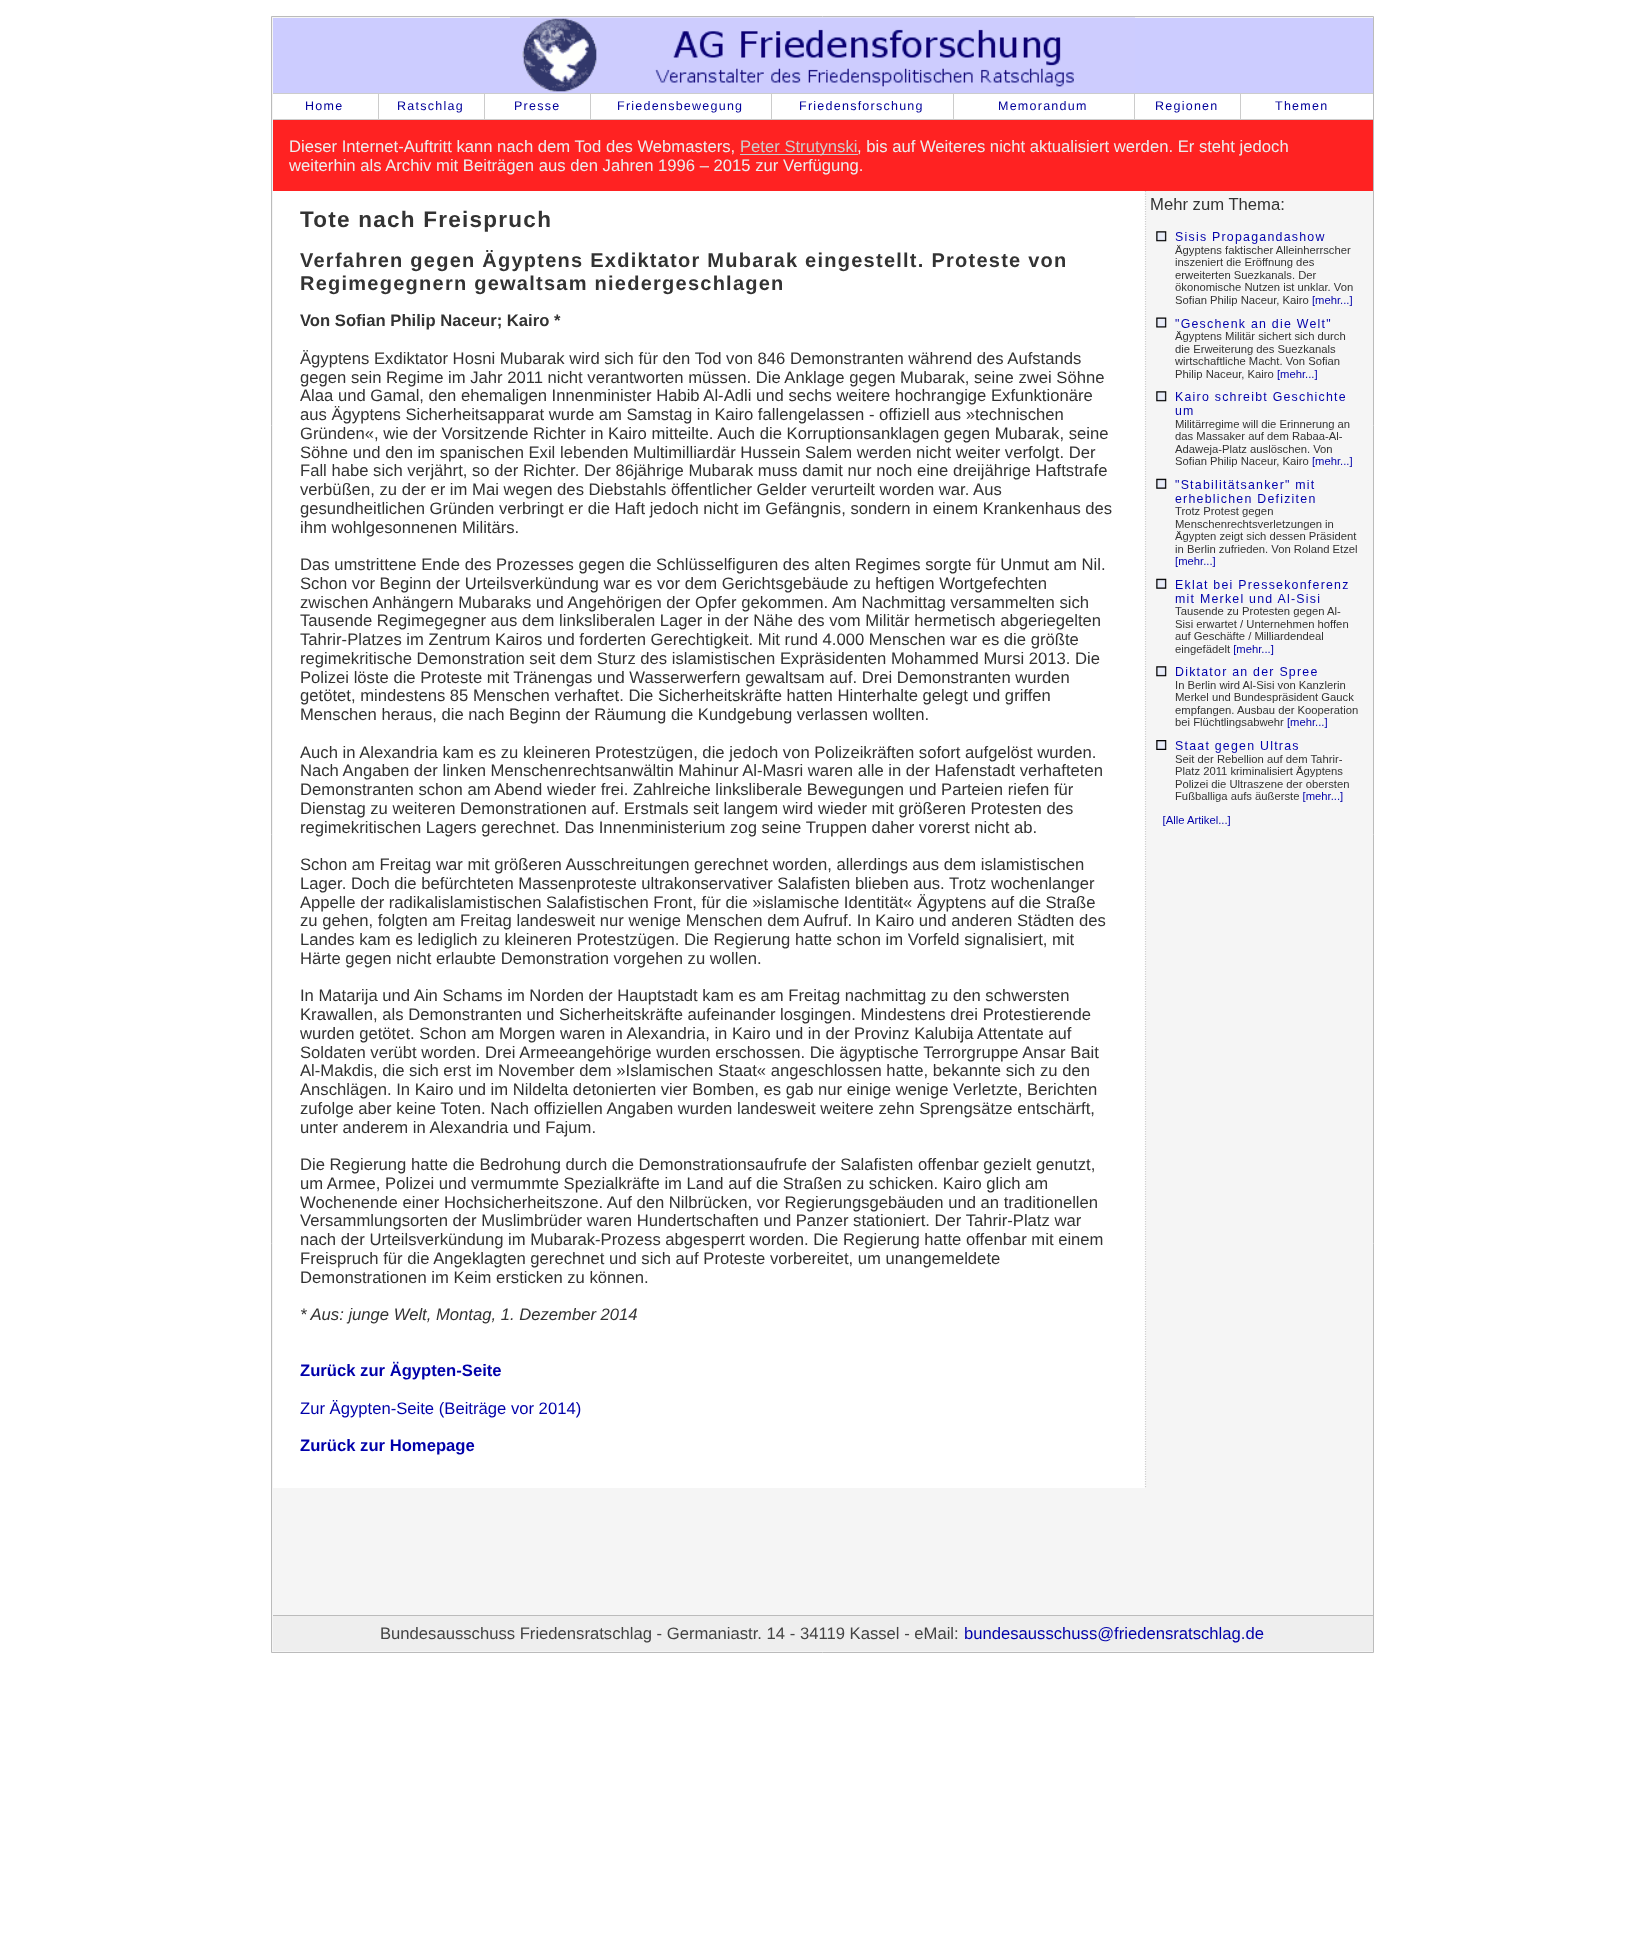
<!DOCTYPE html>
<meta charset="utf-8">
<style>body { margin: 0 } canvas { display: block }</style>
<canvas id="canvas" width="1643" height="1954"></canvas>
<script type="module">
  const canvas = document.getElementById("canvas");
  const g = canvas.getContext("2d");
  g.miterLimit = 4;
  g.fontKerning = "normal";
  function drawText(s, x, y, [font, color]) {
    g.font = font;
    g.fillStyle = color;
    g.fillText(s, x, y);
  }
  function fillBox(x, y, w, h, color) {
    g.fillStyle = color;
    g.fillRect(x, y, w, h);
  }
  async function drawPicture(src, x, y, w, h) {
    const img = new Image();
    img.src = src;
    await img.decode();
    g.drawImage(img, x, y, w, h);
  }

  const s1 = ["12.5px Liberation Sans", "#000099"];
  const s2 = ["16.65px Liberation Sans", "#EEEEEE"];
  const s3 = ["16.65px Liberation Sans", "#CCCCCC"];
  const s4 = ["bold 22.5px Liberation Sans", "#333333"];
  const s5 = ["bold 20px Liberation Sans", "#333333"];
  const s6 = ["bold 16.65px Liberation Sans", "#333333"];
  const s7 = ["16.65px Liberation Sans", "#333333"];
  const s8 = ["italic 16.65px Liberation Sans", "#333333"];
  const s9 = ["bold 16.65px Liberation Sans", "#0000AA"];
  const s10 = ["16.65px Liberation Sans", "#0000AA"];
  const s11 = ["16.65px Liberation Sans", "#444444"];

  fillBox(0, 0, 1643, 1954, "#FFFFFF");
  g.fillStyle = "#F5F5F5";
  g.beginPath();
  g.rect(271.5, 16.5, 1102, 1636);
  g.fill();
  g.strokeStyle = "#BBBBBB";
  g.stroke();
  fillBox(273, 18, 1100, 75, "#CCCCFF");
  await drawPicture("pic1.png", 510, 17, 625, 75);
  fillBox(273, 94, 1100, 25, "#FFFFFF");
  fillBox(273, 93, 1100, 1, "#CCCCCC");
  fillBox(273, 119, 1100, 1, "#CCCCCC");
  fillBox(378, 94, 1, 25, "#CCCCCC");
  g.letterSpacing = "1.25px";
  drawText("Home", 305, 110, s1);
  fillBox(484, 94, 1, 25, "#CCCCCC");
  drawText("Ratschlag", 397, 110, s1);
  fillBox(590, 94, 1, 25, "#CCCCCC");
  drawText("Presse", 514, 110, s1);
  fillBox(771, 94, 1, 25, "#CCCCCC");
  drawText("Friedensbewegung", 617, 110, s1);
  fillBox(953, 94, 1, 25, "#CCCCCC");
  drawText("Friedensforschung", 799, 110, s1);
  fillBox(1134, 94, 1, 25, "#CCCCCC");
  drawText("Memorandum", 998, 110, s1);
  fillBox(1240, 94, 1, 25, "#CCCCCC");
  drawText("Regionen", 1155, 110, s1);
  drawText("Themen", 1275, 110, s1);
  fillBox(273, 120, 1100, 71, "#FF2222");
  g.letterSpacing = "0px";
  drawText("Dieser Internet-Auftritt kann nach dem Tod des Webmasters,", 289, 152, s2);
  fillBox(740, 154, 118, 1, "#CCCCCC");
  drawText("Peter Strutynski", 740, 152, s3);
  drawText(", bis auf Weiteres nicht aktualisiert werden. Er steht jedoch", 857, 152, s2);
  drawText("weiterhin als Archiv mit Beiträgen aus den Jahren 1996 – 2015 zur Verfügung.", 289, 171, s2);
  fillBox(273, 191, 873, 1297, "#FFFFFF");
  g.beginPath();
  g.moveTo(1145.5, 191);
  g.lineTo(1145.5, 1487.5);
  g.strokeStyle = "#CCCCCC";
  g.lineWidth = 1.2;
  g.setLineDash([1.25, 1.25]);
  g.stroke();
  g.letterSpacing = "1.25px";
  drawText("Tote nach Freispruch", 300, 227, s4);
  drawText("Verfahren gegen Ägyptens Exdiktator Mubarak eingestellt. Proteste von", 300, 267, s5);
  drawText("Regimegegnern gewaltsam niedergeschlagen", 300, 290, s5);
  g.letterSpacing = "0px";
  drawText("Von Sofian Philip Naceur; Kairo *", 300, 326, s6);
  drawText("Ägyptens Exdiktator Hosni Mubarak wird sich für den Tod von 846 Demonstranten während des Aufstands", 300, 364, s7);
  drawText("gegen sein Regime im Jahr 2011 nicht verantworten müssen. Die Anklage gegen Mubarak, seine zwei Söhne", 300, 383, s7);
  drawText("Alaa und Gamal, den ehemaligen Innenminister Habib Al-Adli und sechs weitere hochrangige Exfunktionäre", 300, 401, s7);
  drawText("aus Ägyptens Sicherheitsapparat wurde am Samstag in Kairo fallengelassen - offiziell aus »technischen", 300, 420, s7);
  drawText("Gründen«, wie der Vorsitzende Richter in Kairo mitteilte. Auch die Korruptionsanklagen gegen Mubarak, seine", 300, 439, s7);
  drawText("Söhne und den im spanischen Exil lebenden Multimilliardär Hussein Salem werden nicht weiter verfolgt. Der", 300, 458, s7);
  drawText("Fall habe sich verjährt, so der Richter. Der 86jährige Mubarak muss damit nur noch eine dreijährige Haftstrafe", 300, 476, s7);
  drawText("verbüßen, zu der er im Mai wegen des Diebstahls öffentlicher Gelder verurteilt worden war. Aus", 300, 495, s7);
  drawText("gesundheitlichen Gründen verbringt er die Haft jedoch nicht im Gefängnis, sondern in einem Krankenhaus des", 300, 514, s7);
  drawText("ihm wohlgesonnenen Militärs.", 300, 533, s7);
  drawText("Das umstrittene Ende des Prozesses gegen die Schlüsselfiguren des alten Regimes sorgte für Unmut am Nil.", 300, 570, s7);
  drawText("Schon vor Beginn der Urteilsverkündung war es vor dem Gerichtsgebäude zu heftigen Wortgefechten", 300, 589, s7);
  drawText("zwischen Anhängern Mubaraks und Angehörigen der Opfer gekommen. Am Nachmittag versammelten sich", 300, 608, s7);
  drawText("Tausende Regimegegner aus dem linksliberalen Lager in der Nähe des vom Militär hermetisch abgeriegelten", 300, 626, s7);
  drawText("Tahrir-Platzes im Zentrum Kairos und forderten Gerechtigkeit. Mit rund 4.000 Menschen war es die größte", 300, 645, s7);
  drawText("regimekritische Demonstration seit dem Sturz des islamistischen Expräsidenten Mohammed Mursi 2013. Die", 300, 664, s7);
  drawText("Polizei löste die Proteste mit Tränengas und Wasserwerfern gewaltsam auf. Drei Demonstranten wurden", 300, 683, s7);
  drawText("getötet, mindestens 85 Menschen verhaftet. Die Sicherheitskräfte hatten Hinterhalte gelegt und griffen", 300, 701, s7);
  drawText("Menschen heraus, die nach Beginn der Räumung die Kundgebung verlassen wollten.", 300, 720, s7);
  drawText("Auch in Alexandria kam es zu kleineren Protestzügen, die jedoch von Polizeikräften sofort aufgelöst wurden.", 300, 758, s7);
  drawText("Nach Angaben der linken Menschenrechtsanwältin Mahinur Al-Masri waren alle in der Hafenstadt verhafteten", 300, 776, s7);
  drawText("Demonstranten schon am Abend wieder frei. Zahlreiche linksliberale Bewegungen und Parteien riefen für", 300, 795, s7);
  drawText("Dienstag zu weiteren Demonstrationen auf. Erstmals seit langem wird wieder mit größeren Protesten des", 300, 814, s7);
  drawText("regimekritischen Lagers gerechnet. Das Innenministerium zog seine Truppen daher vorerst nicht ab.", 300, 833, s7);
  drawText("Schon am Freitag war mit größeren Ausschreitungen gerechnet worden, allerdings aus dem islamistischen", 300, 870, s7);
  drawText("Lager. Doch die befürchteten Massenproteste ultrakonservativer Salafisten blieben aus. Trotz wochenlanger", 300, 889, s7);
  drawText("Appelle der radikalislamistischen Salafistischen Front, für die »islamische Identität« Ägyptens auf die Straße", 300, 908, s7);
  drawText("zu gehen, folgten am Freitag landesweit nur wenige Menschen dem Aufruf. In Kairo und anderen Städten des", 300, 926, s7);
  drawText("Landes kam es lediglich zu kleineren Protestzügen. Die Regierung hatte schon im Vorfeld signalisiert, mit", 300, 945, s7);
  drawText("Härte gegen nicht erlaubte Demonstration vorgehen zu wollen.", 300, 964, s7);
  drawText("In Matarija und Ain Schams im Norden der Hauptstadt kam es am Freitag nachmittag zu den schwersten", 300, 1001, s7);
  drawText("Krawallen, als Demonstranten und Sicherheitskräfte aufeinander losgingen. Mindestens drei Protestierende", 300, 1020, s7);
  drawText("wurden getötet. Schon am Morgen waren in Alexandria, in Kairo und in der Provinz Kalubija Attentate auf", 300, 1039, s7);
  drawText("Soldaten verübt worden. Drei Armeeangehörige wurden erschossen. Die ägyptische Terrorgruppe Ansar Bait", 300, 1058, s7);
  drawText("Al-Makdis, die sich erst im November dem »Islamischen Staat« angeschlossen hatte, bekannte sich zu den", 300, 1076, s7);
  drawText("Anschlägen. In Kairo und im Nildelta detonierten vier Bomben, es gab nur einige wenige Verletzte, Berichten", 300, 1095, s7);
  drawText("zufolge aber keine Toten. Nach offiziellen Angaben wurden landesweit weitere zehn Sprengsätze entschärft,", 300, 1114, s7);
  drawText("unter anderem in Alexandria und Fajum.", 300, 1133, s7);
  drawText("Die Regierung hatte die Bedrohung durch die Demonstrationsaufrufe der Salafisten offenbar gezielt genutzt,", 300, 1170, s7);
  drawText("um Armee, Polizei und vermummte Spezialkräfte im Land auf die Straßen zu schicken. Kairo glich am", 300, 1189, s7);
  drawText("Wochenende einer Hochsicherheitszone. Auf den Nilbrücken, vor Regierungsgebäuden und an traditionellen", 300, 1208, s7);
  drawText("Versammlungsorten der Muslimbrüder waren Hundertschaften und Panzer stationiert. Der Tahrir-Platz war", 300, 1226, s7);
  drawText("nach der Urteilsverkündung im Mubarak-Prozess abgesperrt worden. Die Regierung hatte offenbar mit einem", 300, 1245, s7);
  drawText("Freispruch für die Angeklagten gerechnet und sich auf Proteste vorbereitet, um unangemeldete", 300, 1264, s7);
  drawText("Demonstrationen im Keim ersticken zu können.", 300, 1283, s7);
  drawText("* Aus: junge Welt, Montag, 1. Dezember 2014", 300, 1320, s8);
  drawText("Zurück zur Ägypten-Seite", 300, 1376, s9);
  drawText("Zur Ägypten-Seite (Beiträge vor 2014)", 300, 1414, s10);
  drawText("Zurück zur Homepage", 300, 1451, s9);
  await drawPicture("pic2.png", 1151, 198, 207, 628);
  fillBox(273, 1616, 1100, 35, "#EEEEEE");
  fillBox(273, 1615, 1100, 1, "#BBBBBB");
  drawText("Bundesausschuss Friedensratschlag - Germaniastr. 14 - 34119 Kassel - eMail:", 380, 1639, s11);
  drawText("bundesausschuss@friedensratschlag.de", 964, 1639, s10);
</script>
